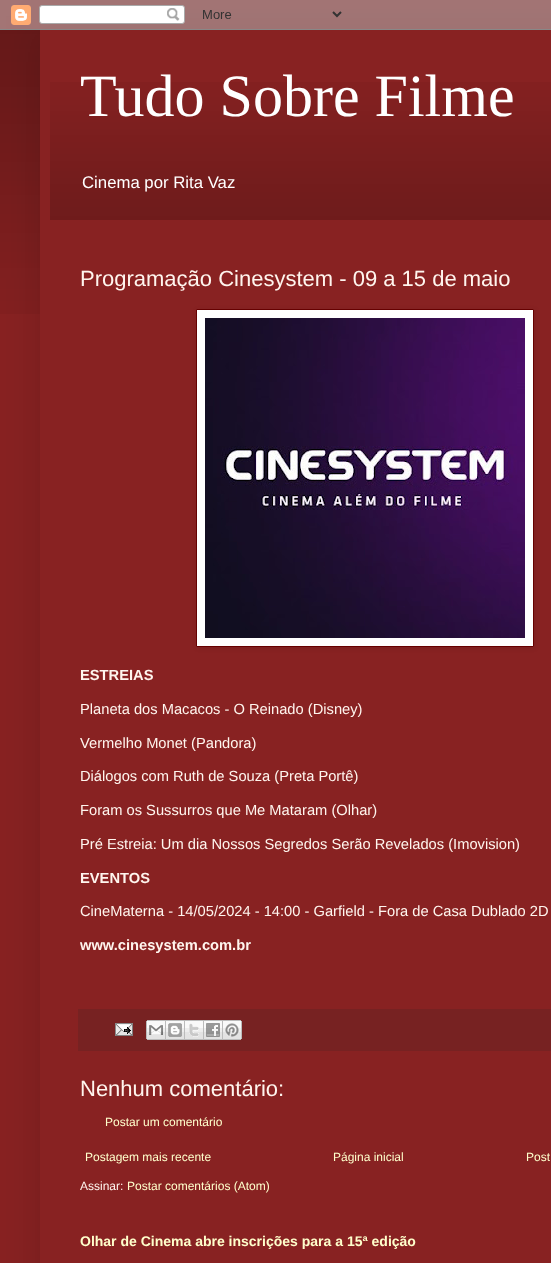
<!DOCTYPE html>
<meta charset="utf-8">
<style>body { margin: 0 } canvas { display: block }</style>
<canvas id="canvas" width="551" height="1263"></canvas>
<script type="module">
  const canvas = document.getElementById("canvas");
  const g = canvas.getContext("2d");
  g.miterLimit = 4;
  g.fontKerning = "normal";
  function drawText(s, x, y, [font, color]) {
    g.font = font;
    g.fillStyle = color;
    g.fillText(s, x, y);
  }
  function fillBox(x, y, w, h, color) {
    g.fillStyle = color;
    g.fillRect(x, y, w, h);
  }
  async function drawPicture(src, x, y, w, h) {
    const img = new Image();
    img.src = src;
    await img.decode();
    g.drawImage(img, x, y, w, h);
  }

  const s1 = ["60px Liberation Serif", "#FFFFFF"];
  const s2 = ["16.75px Liberation Sans", "#FFFFFF"];
  const s3 = ["22px Liberation Sans", "#FFF5EE"];
  const s4 = ["bold 14.7px Liberation Sans", "#FFF5EE"];
  const s5 = ["14.7px Liberation Sans", "#FFF5EE"];
  const s6 = ["12px Liberation Sans", "#FFFFCC"];
  const s7 = ["12px Liberation Sans", "#FFF5EE"];
  const s8 = ["bold 14px Liberation Sans", "#FFFFCC"];

  fillBox(0, 0, 551, 1263, "#882222");
  await drawPicture("pic1.png", 0, 0, 551, 314);
  g.fillStyle = "rgba(0, 0, 0, 0.15)";
  g.filter = "blur(20px)";
  g.beginPath();
  g.rect(40, 30, 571, 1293);
  g.fill();
  g.filter = "none";
  await drawPicture("pic2.png", 0, 0, 551, 30);
  fillBox(40, 30, 511, 1233, "#882222");
  await drawPicture("pic3.png", 50, 82, 501, 138);
  drawText("Tudo Sobre Filme", 80, 116, s1);
  drawText("Cinema por Rita Vaz", 82, 188, s2);
  drawText("Programação Cinesystem - 09 a 15 de maio", 80, 286, s3);
  g.fillStyle = "rgba(0, 0, 0, 0.1)";
  g.filter = "blur(2.5px)";
  g.beginPath();
  g.rect(197, 310, 338, 338);
  g.fill();
  g.filter = "none";
  g.fillStyle = "#FFFFFF";
  g.beginPath();
  g.rect(196.5, 309.5, 337, 337);
  g.fill();
  g.strokeStyle = "#660000";
  g.stroke();
  await drawPicture("pic4.png", 205, 318, 320, 320);
  drawText("ESTREIAS", 80, 680, s4);
  drawText("Planeta dos Macacos - O Reinado (Disney)", 80, 714, s5);
  drawText("Vermelho Monet (Pandora)", 80, 748, s5);
  drawText("Diálogos com Ruth de Souza (Preta Portê)", 80, 781, s5);
  drawText("Foram os Sussurros que Me Mataram (Olhar)", 80, 815, s5);
  drawText("Pré Estreia: Um dia Nossos Segredos Serão Revelados (Imovision)", 80, 849, s5);
  drawText("EVENTOS", 80, 883, s4);
  drawText("CineMaterna - 14/05/2024 - 14:00 - Garfield - Fora de Casa Dublado 2D", 80, 916, s5);
  drawText("www.cinesystem.com.br", 80, 950, s4);
  fillBox(78, 1009, 473, 42, "#772222");
  await drawPicture("pic5.png", 115, 1023, 18, 13);
  await drawPicture("pic6.png", 146, 1020, 20, 20);
  await drawPicture("pic7.png", 166, 1020, 19, 20);
  await drawPicture("pic8.png", 185, 1020, 19, 20);
  await drawPicture("pic9.png", 204, 1020, 19, 20);
  await drawPicture("pic10.png", 223, 1020, 19, 20);
  drawText("Nenhum comentário:", 80, 1096, s3);
  drawText("Postar um comentário", 105, 1126, s6);
  drawText("Postagem mais recente", 85, 1161, s6);
  drawText("Página inicial", 333, 1161, s6);
  drawText("Post", 526, 1161, s6);
  drawText("Assinar:", 80, 1190, s7);
  drawText("Postar comentários (Atom)", 127, 1190, s6);
  drawText("Olhar de Cinema abre inscrições para a 15ª edição", 80, 1246, s8);
</script>
